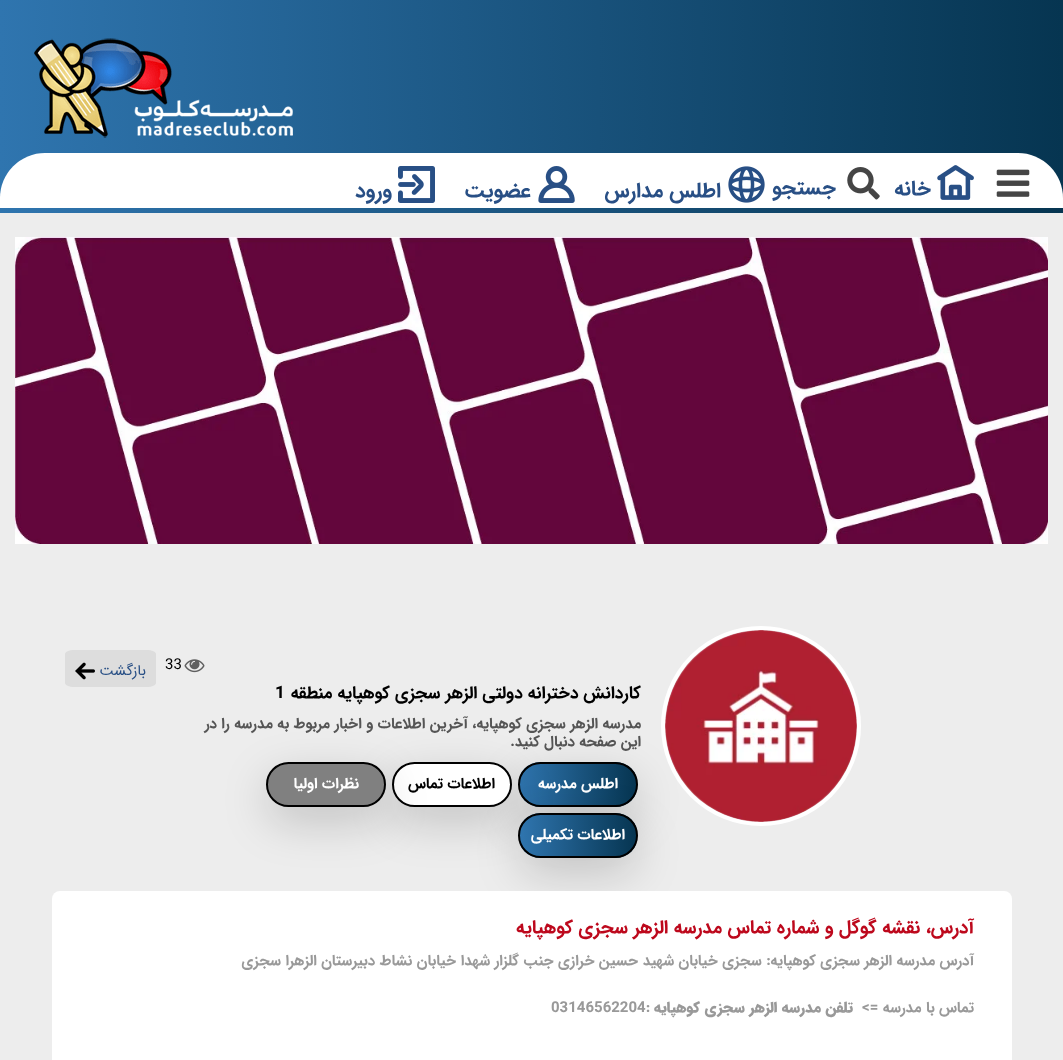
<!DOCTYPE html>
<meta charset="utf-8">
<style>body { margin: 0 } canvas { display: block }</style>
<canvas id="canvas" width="1063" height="1060"></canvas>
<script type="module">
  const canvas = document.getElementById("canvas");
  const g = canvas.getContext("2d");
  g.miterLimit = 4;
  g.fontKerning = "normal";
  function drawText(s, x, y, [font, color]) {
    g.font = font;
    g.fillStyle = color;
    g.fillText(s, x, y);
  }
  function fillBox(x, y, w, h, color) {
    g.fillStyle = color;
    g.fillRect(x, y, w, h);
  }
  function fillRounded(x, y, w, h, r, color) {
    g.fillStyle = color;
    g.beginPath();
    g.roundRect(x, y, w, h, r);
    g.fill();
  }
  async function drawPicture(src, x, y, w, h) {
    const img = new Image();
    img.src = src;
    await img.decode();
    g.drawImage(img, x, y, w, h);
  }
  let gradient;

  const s1 = ["bold 21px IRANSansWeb", "#284F85"];
  const s2 = ["15px IRANSansWeb", "#000000"];
  const s3 = ["15px IRANSansWeb", "#284F85"];
  const s4 = ["bold 17.25px IRANSansWeb", "#000000"];
  const s5 = ["bold 15px IRANSansWeb", "#555555"];
  const s6 = ["bold 15px IRANSansWeb", "#FFFFFF"];
  const s7 = ["bold 15px IRANSansWeb", "#000000"];
  const s8 = ["bold 18.75px IRANSansWeb", "#BD081C"];
  const s9 = ["bold 15px IRANSansWeb", "#999999"];
  const s10 = ["900 15px IRANSansWeb", "#999999"];

  fillBox(0, 0, 1063, 1060, "#EDEDED");
  gradient = g.createLinearGradient(0, 77, 1063, 76);
  gradient.addColorStop(0, "#2F75AF");
  gradient.addColorStop(1, "#063551");
  g.fillStyle = gradient;
  g.fillRect(0, 0, 1063, 153);
  await drawPicture("pic1.png", 34, 38, 259, 100);
  gradient = g.createLinearGradient(0, 183, 1063, 183);
  gradient.addColorStop(0, "#2F75AF");
  gradient.addColorStop(1, "#063551");
  g.fillStyle = gradient;
  g.fillRect(0, 153, 1063, 60);
  g.fillStyle = "#FFFFFF";
  g.beginPath();
  g.roundRect(0, 153, 1063, 55, [45, 45, 0, 0]);
  g.fill();
  await drawPicture("pic2.png", 996, 169, 34, 28);
  await drawPicture("pic3.png", 937, 165, 37, 35);
  g.direction = "rtl";
  drawText("خانه", 931, 195, s1);
  await drawPicture("pic4.png", 847, 167, 33, 33);
  drawText("جستجو", 836, 194, s1);
  await drawPicture("pic5.png", 728, 166, 37, 37);
  drawText("اطلس مدارس", 721, 197, s1);
  await drawPicture("pic6.png", 538, 166, 37, 37);
  drawText("عضویت", 531, 197, s1);
  await drawPicture("pic7.png", 398, 166, 37, 37);
  drawText("ورود", 392, 197, s1);
  await drawPicture("pic8.png", 15, 237, 1033, 307);
  await drawPicture("pic9.png", 184, 659, 21, 14);
  g.direction = "ltr";
  drawText("33", 165, 669, s2);
  g.fillStyle = "#DDDDDD";
  g.beginPath();
  g.moveTo(74, 650);
  g.lineTo(147, 650);
  g.bezierCurveTo(152, 650, 156, 652, 156, 654);
  g.lineTo(156, 683);
  g.bezierCurveTo(156, 685, 152, 687, 147, 687);
  g.lineTo(74, 687);
  g.bezierCurveTo(69, 687, 65, 685, 65, 683);
  g.lineTo(65, 654);
  g.bezierCurveTo(65, 652, 69, 650, 74, 650);
  g.closePath();
  g.fill();
  g.direction = "rtl";
  drawText("بازگشت", 146, 675, s3);
  await drawPicture("pic10.png", 75, 662, 20, 18);
  g.beginPath();
  g.arc(761, 726, 98, 0, Math.PI * 2);
  g.strokeStyle = "#FFFFFF";
  g.lineWidth = 4;
  g.stroke();
  await drawPicture("pic11.png", 665, 630, 192, 192);
  drawText("کاردانش دخترانه دولتی الزهر سجزی", 641, 698, s4);
  drawText("کوهپایه منطقه", 390, 698, s4);
  g.direction = "ltr";
  drawText("1", 275, 698, s4);
  g.direction = "rtl";
  drawText("مدرسه الزهر سجزی", 641, 728, s5);
  drawText("کوهپایه، آخرین اطلاعات و اخبار مربوط به مدرسه را در", 522, 728, s5);
  drawText("این صفحه دنبال کنید.", 641, 746, s5);
  g.fillStyle = "rgba(0, 0, 0, 0.18)";
  g.filter = "blur(22.5px)";
  g.beginPath();
  g.roundRect(518, 777, 120, 45, 22.5);
  g.fill();
  g.filter = "none";
  g.save();
  g.beginPath();
  g.roundRect(518, 762, 120, 45, 22.5);
  g.clip();
  gradient = g.createLinearGradient(520, 785, 636, 785);
  gradient.addColorStop(0, "#2F75AF");
  gradient.addColorStop(1, "#063551");
  g.fillStyle = gradient;
  g.fillRect(520, 762, 116, 45);
  g.restore();
  g.beginPath();
  g.roundRect(519, 763, 118, 43, 21.5);
  g.strokeStyle = "#000000";
  g.lineWidth = 2;
  g.stroke();
  drawText("اطلس مدرسه", 618, 788, s6);
  g.fillStyle = "rgba(0, 0, 0, 0.18)";
  g.filter = "blur(22.5px)";
  g.beginPath();
  g.roundRect(392, 777, 120, 45, 22.5);
  g.fill();
  g.filter = "none";
  g.fillStyle = "#FFFFFF";
  g.beginPath();
  g.roundRect(393, 763, 118, 43, 21.5);
  g.fill();
  g.stroke();
  drawText("اطلاعات تماس", 495, 788, s7);
  g.fillStyle = "rgba(0, 0, 0, 0.18)";
  g.filter = "blur(22.5px)";
  g.beginPath();
  g.roundRect(266, 777, 120, 45, 22.5);
  g.fill();
  g.filter = "none";
  g.fillStyle = "#808080";
  g.beginPath();
  g.roundRect(267, 763, 118, 43, 21.5);
  g.fill();
  g.stroke();
  drawText("نظرات اولیا", 359, 788, s6);
  g.fillStyle = "rgba(0, 0, 0, 0.18)";
  g.filter = "blur(22.5px)";
  g.beginPath();
  g.roundRect(518, 828, 120, 45, 22.5);
  g.fill();
  g.filter = "none";
  g.save();
  g.beginPath();
  g.roundRect(518, 813, 120, 45, 22.5);
  g.clip();
  gradient = g.createLinearGradient(520, 836, 636, 836);
  gradient.addColorStop(0, "#2F75AF");
  gradient.addColorStop(1, "#063551");
  g.fillStyle = gradient;
  g.fillRect(520, 813, 116, 45);
  g.restore();
  g.beginPath();
  g.roundRect(519, 814, 118, 43, 21.5);
  g.stroke();
  drawText("اطلاعات تکمیلی", 625, 839, s6);
  fillRounded(52, 891, 960, 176, 8, "#FFFFFF");
  drawText("آدرس، نقشه گوگل و شماره تماس مدرسه الزهر سجزی", 974, 933, s8);
  drawText("کوهپایه", 573, 933, s8);
  drawText("آدرس مدرسه الزهر سجزی", 974, 965, s9);
  drawText("کوهپایه: سجزی خیابان شهید حسین خرازی جنب گلزار شهدا خیابان نشاط دبیرستان الزهرا سجزی", 816, 965, s9);
  drawText("تماس با مدرسه =>", 974, 1012, s9);
  drawText("تلفن مدرسه الزهر سجزی", 853, 1012, s10);
  drawText("کوهپایه", 700, 1012, s10);
  g.direction = "ltr";
  drawText("03146562204:", 551, 1012, s9);
</script>
